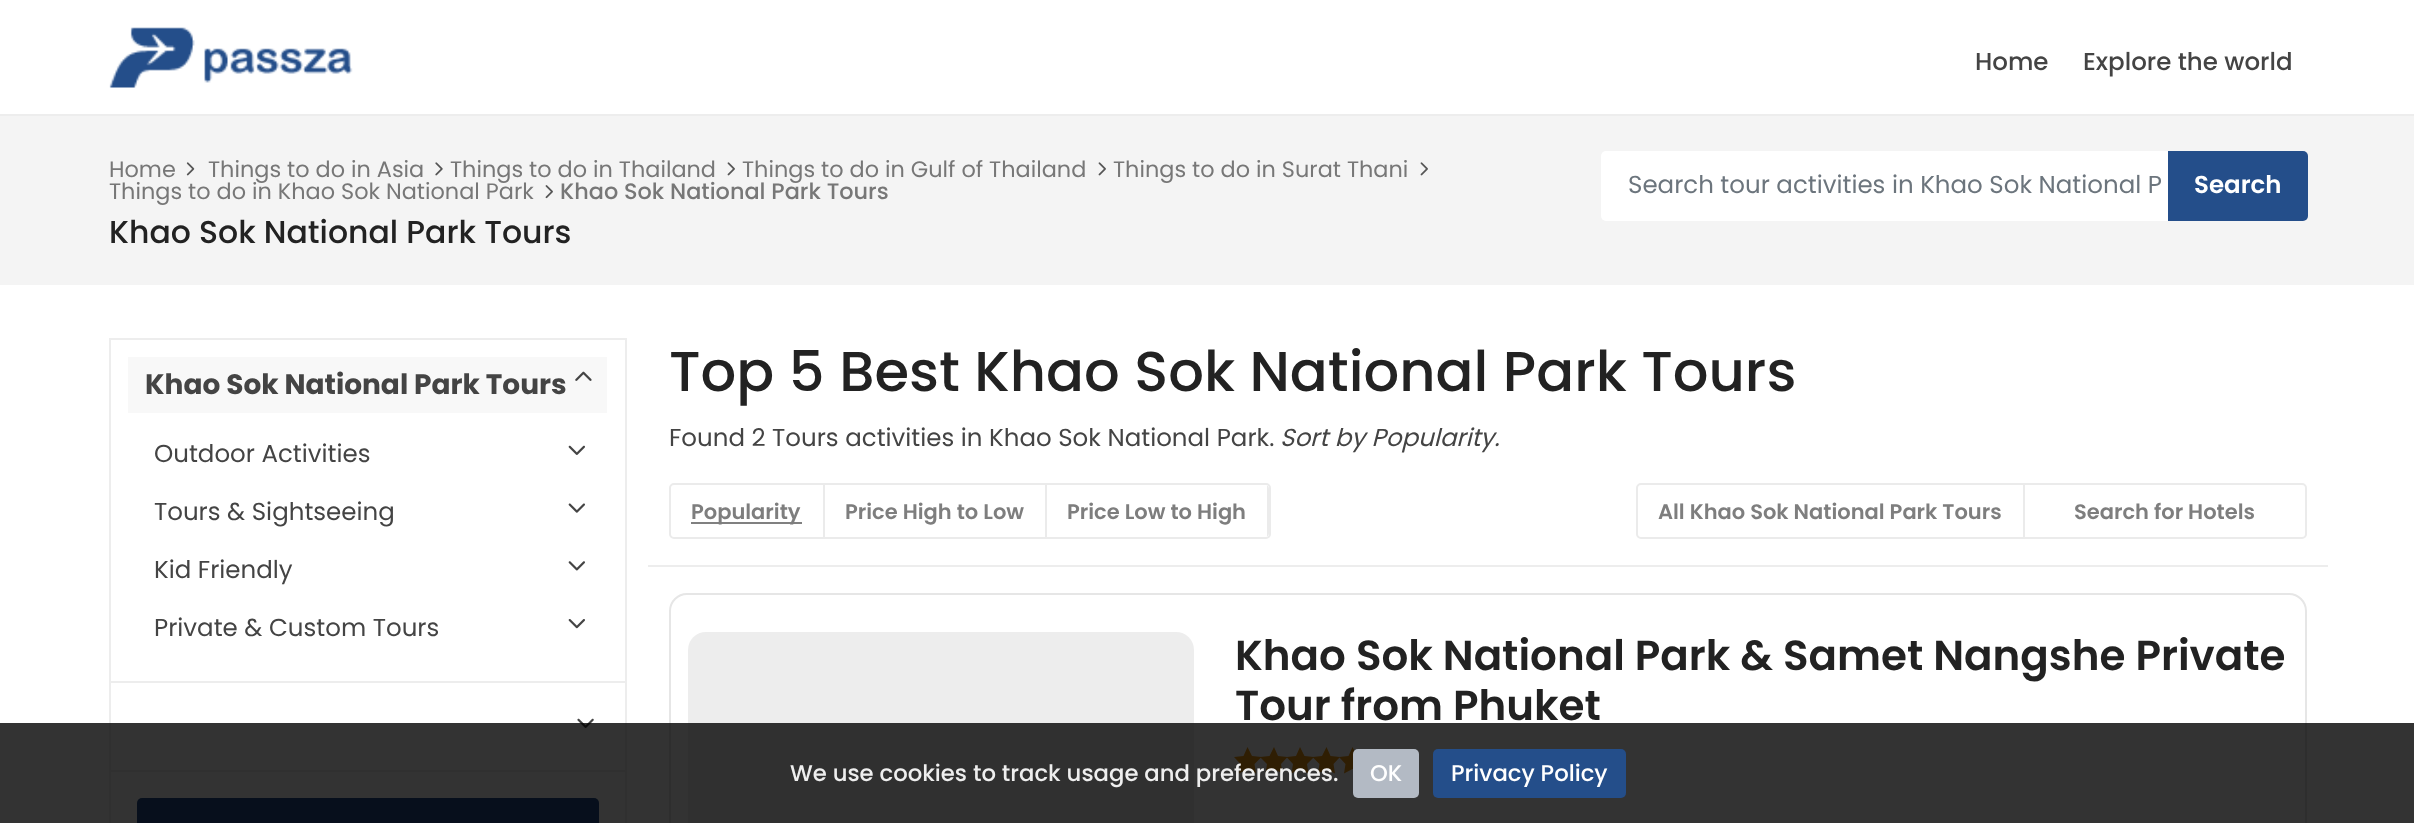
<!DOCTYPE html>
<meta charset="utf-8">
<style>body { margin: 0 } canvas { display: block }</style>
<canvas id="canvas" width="2414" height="823"></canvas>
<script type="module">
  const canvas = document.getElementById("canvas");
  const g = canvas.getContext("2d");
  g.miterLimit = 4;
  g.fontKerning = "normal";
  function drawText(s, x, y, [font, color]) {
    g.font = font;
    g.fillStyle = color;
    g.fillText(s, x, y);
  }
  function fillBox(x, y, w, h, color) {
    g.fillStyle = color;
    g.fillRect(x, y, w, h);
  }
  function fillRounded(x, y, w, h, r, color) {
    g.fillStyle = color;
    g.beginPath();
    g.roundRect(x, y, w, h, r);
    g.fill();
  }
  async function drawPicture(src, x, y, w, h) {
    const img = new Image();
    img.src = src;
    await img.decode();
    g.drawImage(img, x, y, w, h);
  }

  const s1 = ["500 24.5px Poppins", "#444444"];
  const s2 = ["22.4px Poppins", "#777777"];
  const s3 = ["500 22.4px Poppins", "#777777"];
  const s4 = ["500 31.5px Poppins", "#222222"];
  const s5 = ["24.5px Poppins", "#6C757D"];
  const s6 = ["600 24.5px Poppins", "#FFFFFF"];
  const s7 = ["bold 28px Poppins", "#444444"];
  const s8 = ["24.5px Poppins", "#444444"];
  const s9 = ["500 56px Poppins", "#222222"];
  const s10 = ["italic 24.5px Poppins", "#444444"];
  const s11 = ["600 21px Poppins", "#7E7E7E"];
  const s12 = ["600 42px Poppins", "#222222"];
  const s13 = ["500 22.75px Poppins", "#EEEEEE"];
  const s14 = ["500 22.75px Poppins", "#FFFFFF"];

  fillBox(0, 0, 2414, 823, "#FFFFFF");
  fillBox(0, 114, 2414, 2, "#EDEDED");
  await drawPicture("pic1.png", 109, 27, 244, 61);
  drawText("Home", 1975, 70, s1);
  drawText("Explore the world", 2083, 70, s1);
  fillBox(0, 116, 2414, 169, "#F4F4F4");
  drawText("Home", 109, 177, s2);
  await drawPicture("pic2.png", 186, 162, 9, 14);
  drawText("Things to do in Asia", 208, 177, s2);
  await drawPicture("pic3.png", 435, 162, 8, 14);
  drawText("Things to do in Thailand", 450, 177, s2);
  await drawPicture("pic4.png", 727, 162, 8, 14);
  drawText("Things to do in Gulf of Thailand", 742, 177, s2);
  await drawPicture("pic4.png", 1098, 162, 8, 14);
  drawText("Things to do in Surat Thani", 1113, 177, s2);
  await drawPicture("pic4.png", 1420, 162, 8, 14);
  drawText("Things to do in Khao Sok National Park", 109, 199, s2);
  await drawPicture("pic5.png", 545, 185, 8, 14);
  drawText("Khao Sok National Park Tours", 560, 199, s3);
  drawText("Khao Sok National Park Tours", 109, 243, s4);
  fillRounded(1601, 151, 706, 70, 5, "#FFFFFF");
  drawText("Search tour activities in Khao Sok National P", 1628, 193, s5);
  g.fillStyle = "#244E8A";
  g.beginPath();
  g.roundRect(2168, 151, 140, 70, [0, 5, 5, 0]);
  g.fill();
  drawText("Search", 2194, 193, s6);
  g.strokeStyle = "#EDEDED";
  g.lineWidth = 2;
  g.strokeRect(110, 339, 516, 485);
  fillBox(110, 681, 515, 2, "#EDEDED");
  fillBox(128, 357, 479, 56, "#F8F8F8");
  drawText("Khao Sok National Park Tours", 145, 394, s7);
  await drawPicture("pic6.png", 575, 371, 17, 10);
  drawText("Outdoor Activities", 154, 462, s8);
  await drawPicture("pic7.png", 568, 445, 17, 10);
  drawText("Tours & Sightseeing", 154, 520, s8);
  await drawPicture("pic8.png", 568, 503, 17, 10);
  drawText("Kid Friendly", 154, 578, s8);
  await drawPicture("pic9.png", 568, 561, 17, 10);
  drawText("Private & Custom Tours", 154, 636, s8);
  await drawPicture("pic10.png", 568, 619, 17, 10);
  fillBox(110, 770, 515, 2, "#EDEDED");
  await drawPicture("pic11.png", 577, 718, 17, 10);
  fillRounded(137, 798, 462, 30, 5, "#244E8A");
  fillBox(648, 565, 1680, 2, "#EDEDED");
  drawText("Top 5 Best Khao Sok National Park Tours", 669, 391, s9);
  drawText("Found 2 Tours activities in Khao Sok National Park.", 669, 446, s8);
  drawText("Sort by Popularity.", 1280, 446, s10);
  g.beginPath();
  g.roundRect(670, 484, 600, 54, 4);
  g.strokeStyle = "#EBEBEB";
  g.stroke();
  fillBox(823, 485, 2, 52, "#EBEBEB");
  fillBox(691, 522, 111, 2, "#808080");
  drawText("Popularity", 691, 519, s11);
  fillBox(1045, 485, 2, 52, "#EBEBEB");
  drawText("Price High to Low", 845, 519, s11);
  g.save();
  g.beginPath();
  g.roundRect(670, 485, 599, 52, 4);
  g.clip();
  fillBox(1267, 485, 2, 52, "#EBEBEB");
  g.restore();
  drawText("Price Low to High", 1067, 519, s11);
  g.beginPath();
  g.roundRect(1637, 484, 669, 54, 4);
  g.stroke();
  fillBox(2023, 485, 2, 52, "#EBEBEB");
  drawText("All Khao Sok National Park Tours", 1658, 519, s11);
  drawText("Search for Hotels", 2074, 519, s11);
  g.beginPath();
  g.roundRect(670, 594, 1636, 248, 17);
  g.strokeStyle = "#E6E6E6";
  g.stroke();
  fillRounded(688, 632, 506, 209, 18, "#EDEDED");
  drawText("Khao Sok National Park & Samet Nangshe Private", 1235, 670, s12);
  drawText("Tour from Phuket", 1235, 720, s12);
  g.fillStyle = "#EC9411";
  g.beginPath();
  g.moveTo(1252, 756);
  g.lineTo(1261.5, 757);
  g.lineTo(1254.5, 764);
  g.lineTo(1256, 773.5);
  g.lineTo(1247.5, 769);
  g.lineTo(1239, 773.5);
  g.lineTo(1240.5, 764);
  g.lineTo(1234, 757);
  g.lineTo(1243.5, 756);
  g.lineTo(1247.5, 747);
  g.closePath();
  g.fill();
  g.beginPath();
  g.moveTo(1278, 756);
  g.lineTo(1287.5, 757);
  g.lineTo(1281, 764);
  g.lineTo(1282.5, 773.5);
  g.lineTo(1274, 769);
  g.lineTo(1265.5, 773.5);
  g.lineTo(1267, 764);
  g.lineTo(1260, 757);
  g.lineTo(1269.5, 756);
  g.lineTo(1274, 747);
  g.closePath();
  g.fill();
  g.beginPath();
  g.moveTo(1304.5, 756);
  g.lineTo(1314, 757);
  g.lineTo(1307, 764);
  g.lineTo(1308.5, 773.5);
  g.lineTo(1300, 769);
  g.lineTo(1291.5, 773.5);
  g.lineTo(1293, 764);
  g.lineTo(1286.5, 757);
  g.lineTo(1296, 756);
  g.lineTo(1300, 747);
  g.closePath();
  g.fill();
  g.beginPath();
  g.moveTo(1330.5, 756);
  g.lineTo(1340, 757);
  g.lineTo(1333.5, 764);
  g.lineTo(1335, 773.5);
  g.lineTo(1326.5, 769);
  g.lineTo(1318, 773.5);
  g.lineTo(1319.5, 764);
  g.lineTo(1312.5, 757);
  g.lineTo(1322, 756);
  g.lineTo(1326.5, 747);
  g.closePath();
  g.fill();
  g.beginPath();
  g.moveTo(1357, 756);
  g.lineTo(1366.5, 757);
  g.lineTo(1359.5, 764);
  g.lineTo(1361, 773.5);
  g.lineTo(1352.5, 769);
  g.lineTo(1344, 773.5);
  g.lineTo(1345.5, 764);
  g.lineTo(1339, 757);
  g.lineTo(1348.5, 756);
  g.lineTo(1352.5, 747);
  g.closePath();
  g.fill();
  fillBox(0, 723, 2414, 100, "rgba(0, 0, 0, 0.8)");
  drawText("We use cookies to track usage and preferences.", 790, 781, s13);
  fillRounded(1353, 749, 66, 49, 5, "#B3BAC4");
  drawText("OK", 1370, 781, s14);
  fillRounded(1433, 749, 193, 49, 5, "#244E8A");
  drawText("Privacy Policy", 1451, 781, s14);
</script>
